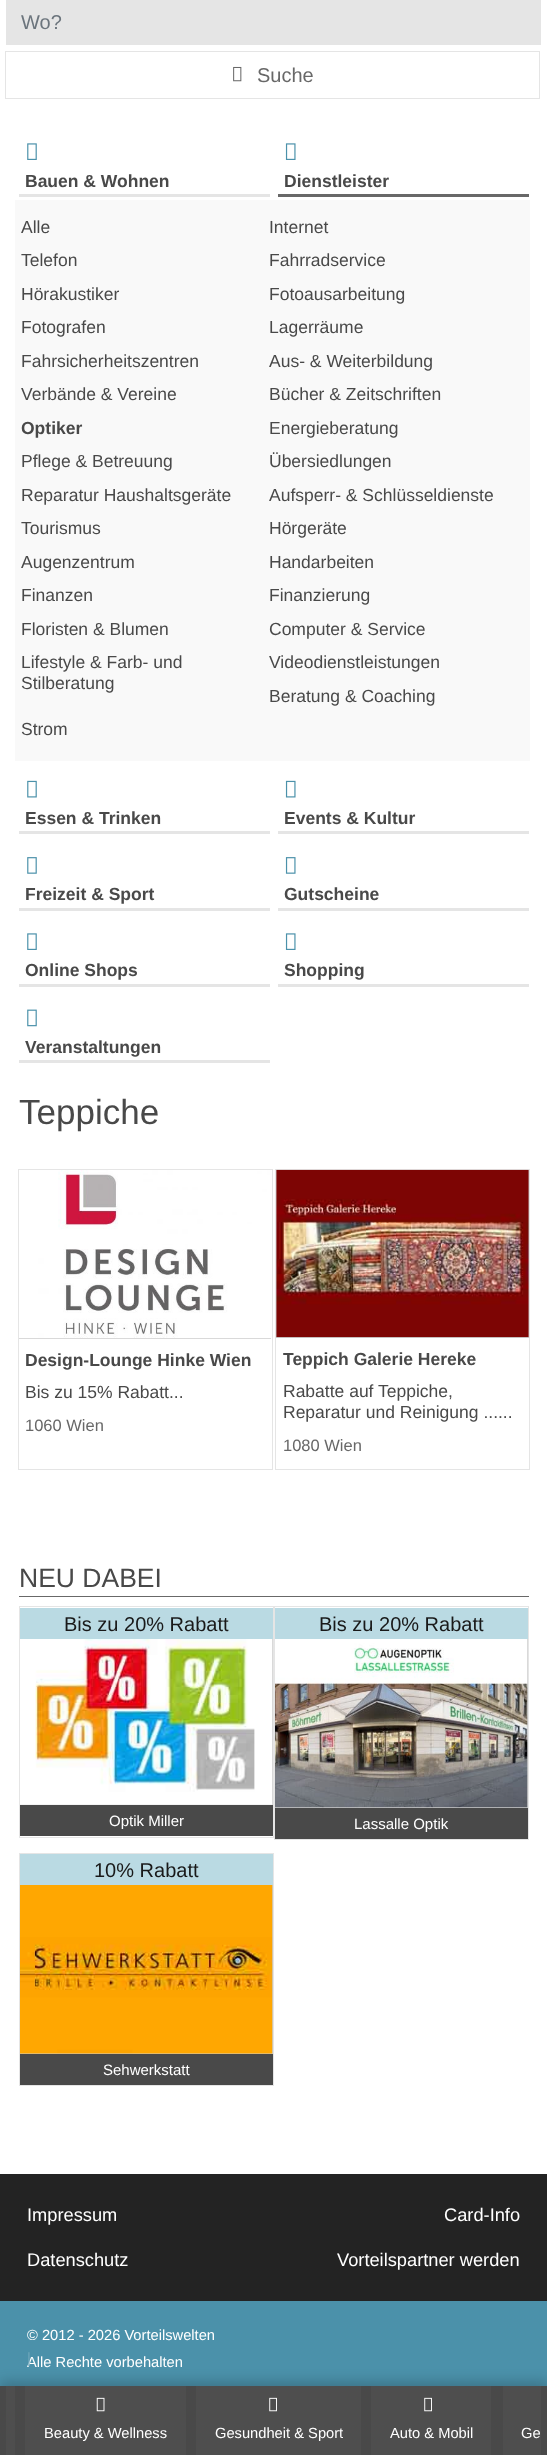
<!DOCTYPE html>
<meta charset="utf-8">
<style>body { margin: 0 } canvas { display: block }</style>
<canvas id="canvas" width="547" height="2455"></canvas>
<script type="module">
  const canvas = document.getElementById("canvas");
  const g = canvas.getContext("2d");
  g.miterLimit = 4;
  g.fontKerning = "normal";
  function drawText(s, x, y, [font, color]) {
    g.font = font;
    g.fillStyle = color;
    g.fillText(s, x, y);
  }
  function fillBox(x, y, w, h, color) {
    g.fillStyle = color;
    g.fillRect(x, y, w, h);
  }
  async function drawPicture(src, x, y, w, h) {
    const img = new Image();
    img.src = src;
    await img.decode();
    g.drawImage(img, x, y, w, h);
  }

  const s1 = ["20px Liberation Sans", "#6C757D"];
  const s2 = ["20px Liberation Sans", "#686868"];
  const s3 = ["14.7px Liberation Sans", "#FFFFFF"];
  const s4 = ["bold 17.5px Liberation Sans", "#494949"];
  const s5 = ["17.5px Liberation Sans", "#494949"];
  const s6 = ["35px Liberation Sans", "#494949"];
  const s7 = ["16.5px Liberation Sans", "#686868"];
  const s8 = ["26.5px Liberation Sans", "#494949"];
  const s9 = ["20px Liberation Sans", "#191919"];
  const s10 = ["15px Liberation Sans", "#FFFFFF"];
  const s11 = ["18.25px Liberation Sans", "#FFFFFF"];
  const s12 = ["14.7px Liberation Sans", "#6FA7BB"];

  fillBox(0, 0, 547, 2455, "#FFFFFF");
  fillBox(6, 0, 535, 45, "#E5E5E5");
  drawText("Wo?", 21, 29, s1);
  g.strokeStyle = "#E5E5E5";
  g.strokeRect(5.5, 51.5, 534, 47);
  await drawPicture("pic1.png", 233, 66, 9, 16);
  drawText("Suche", 257, 82, s2);
  fillBox(0, 2301, 547, 85, "#4B91AA");
  g.fillStyle = "rgba(0, 0, 0, 0.18)";
  g.filter = "blur(6px)";
  g.beginPath();
  g.rect(0, 2381, 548, 69);
  g.fill();
  g.filter = "none";
  fillBox(0, 2386, 547, 69, "#494949");
  fillBox(6, 2386, 9, 69, "#4E4E4E");
  fillBox(25, 2386, 161, 69, "#4E4E4E");
  await drawPicture("pic2.png", 96, 2397, 9, 15);
  drawText("Beauty & Wellness", 44, 2438, s3);
  fillBox(196, 2386, 165, 69, "#4E4E4E");
  await drawPicture("pic3.png", 269, 2397, 8, 15);
  drawText("Gesundheit & Sport", 215, 2438, s3);
  fillBox(371, 2386, 120, 69, "#4E4E4E");
  await drawPicture("pic3.png", 424, 2397, 8, 15);
  drawText("Auto & Mobil", 390, 2438, s3);
  fillBox(503, 2386, 38, 69, "#4E4E4E");
  drawText("Ge", 521, 2438, s3);
  await drawPicture("pic4.png", 27, 143, 10, 17);
  drawText("Bauen & Wohnen", 25, 187, s4);
  fillBox(19, 194, 251, 3, "#E5E5E5");
  await drawPicture("pic5.png", 285, 143, 11, 17);
  drawText("Dienstleister", 284, 187, s4);
  fillBox(278, 194, 251, 3, "#686868");
  fillBox(15, 200, 515, 561, "#F9F9F9");
  drawText("Alle", 21, 233, s5);
  drawText("Internet", 269, 233, s5);
  drawText("Telefon", 21, 266, s5);
  drawText("Fahrradservice", 269, 266, s5);
  drawText("Hörakustiker", 21, 300, s5);
  drawText("Fotoausarbeitung", 269, 300, s5);
  drawText("Fotografen", 21, 333, s5);
  drawText("Lagerräume", 269, 333, s5);
  drawText("Fahrsicherheitszentren", 21, 367, s5);
  drawText("Aus- & Weiterbildung", 269, 367, s5);
  drawText("Verbände & Vereine", 21, 400, s5);
  drawText("Bücher & Zeitschriften", 269, 400, s5);
  drawText("Optiker", 21, 434, s4);
  drawText("Energieberatung", 269, 434, s5);
  drawText("Pflege & Betreuung", 21, 467, s5);
  drawText("Übersiedlungen", 269, 467, s5);
  drawText("Reparatur Haushaltsgeräte", 21, 501, s5);
  drawText("Aufsperr- & Schlüsseldienste", 269, 501, s5);
  drawText("Tourismus", 21, 534, s5);
  drawText("Hörgeräte", 269, 534, s5);
  drawText("Augenzentrum", 21, 568, s5);
  drawText("Handarbeiten", 269, 568, s5);
  drawText("Finanzen", 21, 601, s5);
  drawText("Finanzierung", 269, 601, s5);
  drawText("Floristen & Blumen", 21, 635, s5);
  drawText("Computer & Service", 269, 635, s5);
  drawText("Lifestyle & Farb- und", 21, 668, s5);
  drawText("Stilberatung", 21, 689, s5);
  drawText("Videodienstleistungen", 269, 668, s5);
  drawText("Beratung & Coaching", 269, 702, s5);
  drawText("Strom", 21, 735, s5);
  await drawPicture("pic6.png", 27, 780, 10, 18);
  drawText("Essen & Trinken", 25, 824, s4);
  fillBox(19, 831, 251, 3, "#E5E5E5");
  await drawPicture("pic7.png", 285, 780, 11, 18);
  drawText("Events & Kultur", 284, 824, s4);
  fillBox(278, 831, 251, 3, "#E5E5E5");
  await drawPicture("pic8.png", 27, 857, 10, 17);
  drawText("Freizeit & Sport", 25, 900, s4);
  fillBox(19, 908, 251, 3, "#E5E5E5");
  await drawPicture("pic9.png", 285, 857, 11, 17);
  drawText("Gutscheine", 284, 900, s4);
  fillBox(278, 908, 251, 3, "#E5E5E5");
  await drawPicture("pic4.png", 27, 933, 10, 17);
  drawText("Online Shops", 25, 976, s4);
  fillBox(19, 984, 251, 3, "#E5E5E5");
  await drawPicture("pic5.png", 285, 933, 11, 17);
  drawText("Shopping", 284, 976, s4);
  fillBox(278, 984, 251, 3, "#E5E5E5");
  await drawPicture("pic10.png", 27, 1009, 10, 18);
  drawText("Veranstaltungen", 25, 1053, s4);
  fillBox(19, 1060, 251, 3, "#E5E5E5");
  drawText("Teppiche", 19, 1124, s6);
  g.strokeRect(18.5, 1169.5, 254, 300);
  fillBox(19, 1338, 252, 1, "#CCCCCC");
  await drawPicture("pic11.png", 19, 1170, 252, 169);
  drawText("Design-Lounge Hinke Wien", 25, 1366, s4);
  drawText("Bis zu 15% Rabatt...", 25, 1398, s5);
  drawText("1060 Wien", 25, 1431, s7);
  g.strokeRect(275.5, 1169.5, 254, 300);
  fillBox(276, 1170, 253, 168, "#CCCCCC");
  await drawPicture("pic12.png", 276, 1169, 253, 169);
  drawText("Teppich Galerie Hereke", 283, 1365, s4);
  drawText("Rabatte auf Teppiche,", 283, 1397, s5);
  drawText("Reparatur und Reinigung ......", 283, 1418, s5);
  drawText("1080 Wien", 283, 1451, s7);
  fillBox(19, 1596, 510, 1, "#686868");
  drawText("NEU DABEI", 19, 1587, s8);
  g.strokeRect(19.5, 1606.5, 254, 231);
  fillBox(20, 1608, 253, 31, "#BADAE3");
  drawText("Bis zu 20% Rabatt", 64, 1631, s9);
  fillBox(20, 1639, 253, 166, "#CCCCCC");
  await drawPicture("pic13.png", 20, 1639, 253, 166);
  fillBox(20, 1805, 253, 31, "#494949");
  drawText("Optik Miller", 109, 1826, s10);
  g.strokeRect(274.5, 1606.5, 254, 233);
  fillBox(275, 1608, 253, 31, "#BADAE3");
  drawText("Bis zu 20% Rabatt", 319, 1631, s9);
  fillBox(275, 1639, 253, 169, "#CCCCCC");
  await drawPicture("pic14.png", 275, 1639, 253, 169);
  fillBox(275, 1808, 253, 31, "#494949");
  drawText("Lassalle Optik", 354, 1829, s10);
  g.strokeRect(19.5, 1853.5, 254, 232);
  fillBox(20, 1854, 253, 31, "#BADAE3");
  drawText("10% Rabatt", 94, 1877, s9);
  fillBox(20, 1885, 253, 169, "#CCCCCC");
  await drawPicture("pic15.png", 20, 1885, 253, 169);
  fillBox(20, 2054, 253, 31, "#494949");
  drawText("Sehwerkstatt", 103, 2075, s10);
  fillBox(0, 2174, 547, 127, "#232323");
  drawText("Impressum", 27, 2221, s11);
  drawText("Datenschutz", 27, 2266, s11);
  drawText("Card-Info", 444, 2221, s11);
  drawText("Vorteilspartner werden", 337, 2266, s11);
  drawText("© 2012 - 2026 Vorteilswelten", 27, 2340, s3);
  drawText("Alle Rechte vorbehalten", 27, 2367, s3);
  drawText("|", 27, 2363, s12);
</script>
